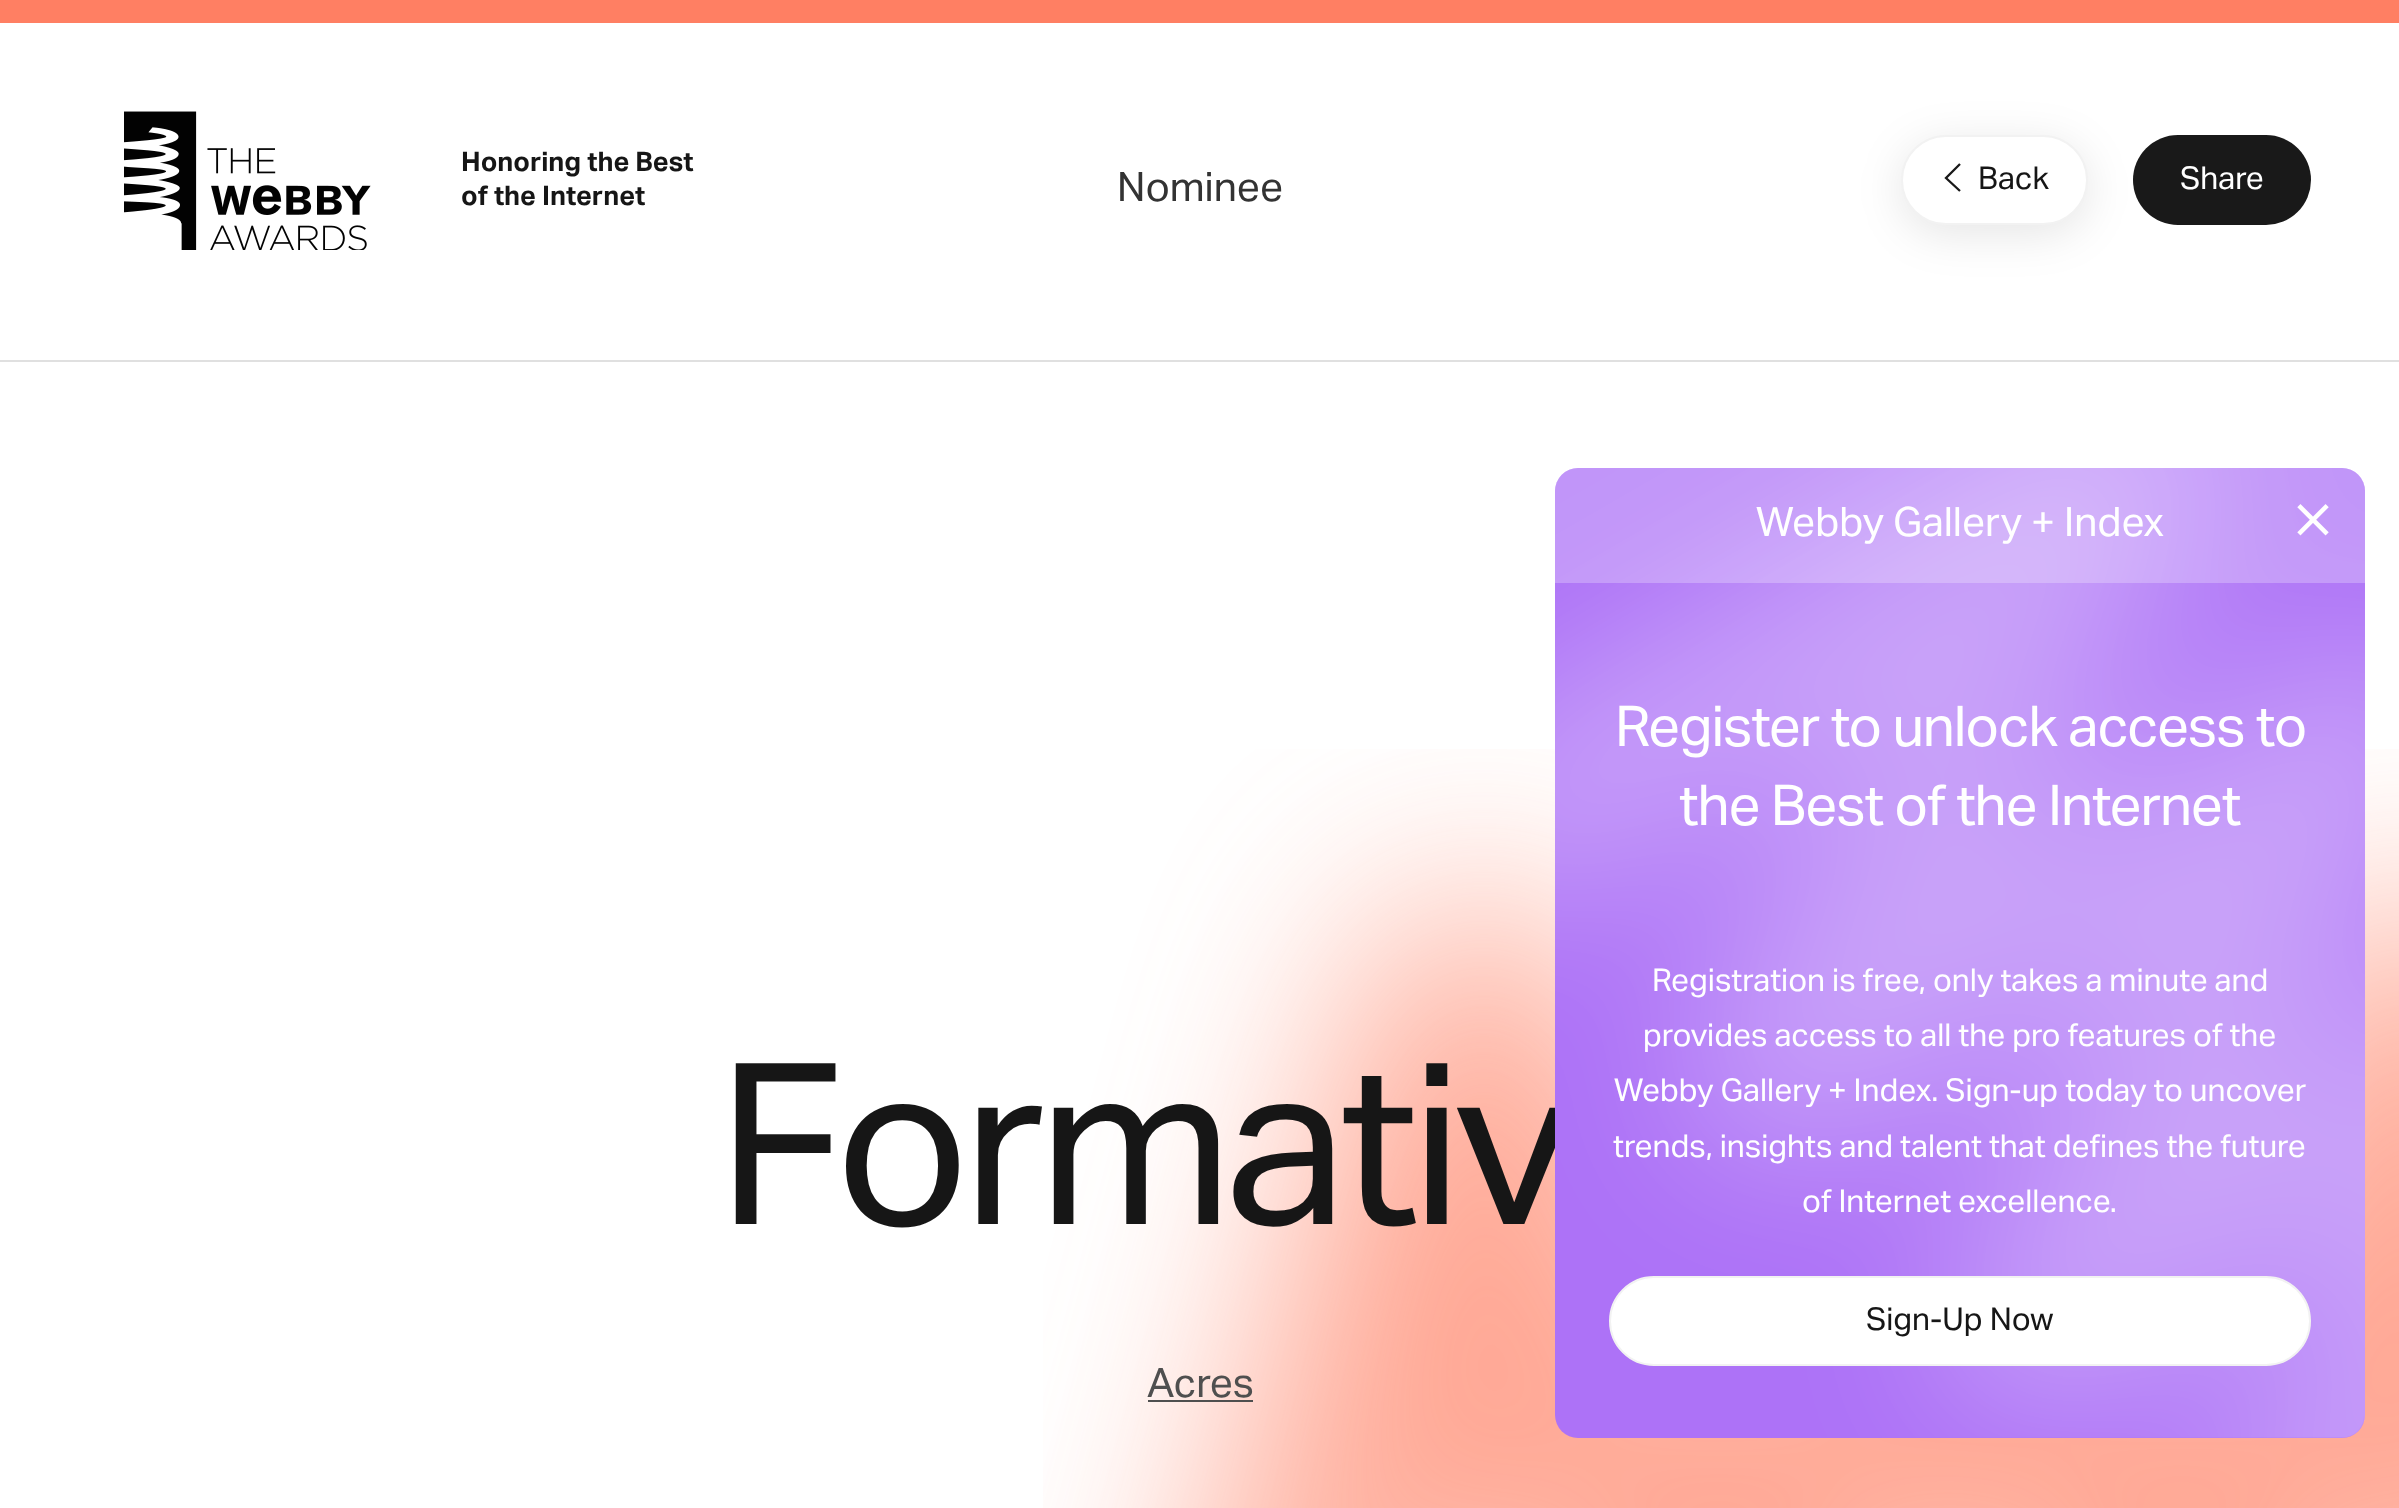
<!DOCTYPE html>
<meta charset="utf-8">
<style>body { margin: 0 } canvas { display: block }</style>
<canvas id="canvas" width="2399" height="1508"></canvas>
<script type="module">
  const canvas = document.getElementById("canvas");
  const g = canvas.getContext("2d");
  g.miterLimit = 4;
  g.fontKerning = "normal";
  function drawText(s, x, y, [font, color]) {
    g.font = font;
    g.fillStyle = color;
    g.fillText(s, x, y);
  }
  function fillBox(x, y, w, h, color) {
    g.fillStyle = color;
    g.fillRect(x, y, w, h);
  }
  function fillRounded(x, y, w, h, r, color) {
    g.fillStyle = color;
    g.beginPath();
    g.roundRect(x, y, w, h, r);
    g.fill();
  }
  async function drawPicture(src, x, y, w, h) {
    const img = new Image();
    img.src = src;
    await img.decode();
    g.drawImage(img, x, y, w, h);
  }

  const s1 = ["bold 27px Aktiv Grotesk", "#161616"];
  const s2 = ["40.5px Aktiv Grotesk", "#333333"];
  const s3 = ["31.5px Aktiv Grotesk", "#161616"];
  const s4 = ["31.5px Aktiv Grotesk", "#FFFFFF"];
  const s5 = ["225px Aktiv Grotesk", "#161616"];
  const s6 = ["40.5px Aktiv Grotesk", "#4F4F4F"];
  const s7 = ["40.5px Aktiv Grotesk", "#FFFFFF"];
  const s8 = ["56.25px Aktiv Grotesk", "#FFFFFF"];

  fillBox(0, 0, 2399, 1508, "#FFFFFF");
  fillBox(0, 0, 2399, 23, "#FF7F63");
  fillBox(0, 360, 2399, 2, "#E0E0E0");
  await drawPicture("pic1.png", 124, 111, 247, 139);
  drawText("Honoring the Best", 461, 171, s1);
  drawText("of the Internet", 461, 205, s1);
  drawText("Nominee", 1117, 201, s2);
  g.fillStyle = "rgba(0, 0, 0, 0.1)";
  g.filter = "blur(22.5px)";
  g.beginPath();
  g.roundRect(1901, 144, 187, 90, 45);
  g.fill();
  g.filter = "none";
  g.fillStyle = "#FFFFFF";
  g.beginPath();
  g.roundRect(1902, 136, 185, 88, 44);
  g.fill();
  g.strokeStyle = "#F2F2F2";
  g.lineWidth = 2;
  g.stroke();
  g.beginPath();
  g.moveTo(1960, 191);
  g.lineTo(1946, 178);
  g.lineTo(1960, 164);
  g.strokeStyle = "#191919";
  g.lineWidth = 2.3;
  g.stroke();
  drawText("Back", 1978, 189, s3);
  fillRounded(2133, 135, 178, 90, 45, "#191919");
  drawText("Share", 2180, 189, s4);
  await drawPicture("pic2.png", 1043, 749, 1356, 759);
  g.letterSpacing = "-6.75px";
  drawText("Formativ", 718, 1224, s5);
  g.letterSpacing = "0px";
  drawText("Acres", 1147, 1397, s6);
  fillBox(1148, 1400, 105, 2, "#4F4F4F");
  fillRounded(1555, 468, 810, 970, 23, "#AD72F7");
  await drawPicture("pic3.png", 1555, 468, 810, 970);
  g.fillStyle = "rgba(255, 255, 255, 0.25)";
  g.beginPath();
  g.roundRect(1555, 468, 810, 115, [23, 23, 0, 0]);
  g.fill();
  drawText("Webby Gallery + Index", 1756, 536, s7);
  await drawPicture("pic4.png", 2297, 504, 32, 32);
  g.letterSpacing = "-1.1px";
  drawText("Register to unlock access to", 1615, 746, s8);
  drawText("the Best of the Internet", 1679, 825, s8);
  g.letterSpacing = "0px";
  drawText("Registration is free, only takes a minute and", 1652, 991, s4);
  drawText("provides access to all the pro features of the", 1643, 1046, s4);
  drawText("Webby Gallery + Index. Sign-up today to uncover", 1614, 1101, s4);
  drawText("trends, insights and talent that defines the future", 1613, 1157, s4);
  drawText("of Internet excellence.", 1802, 1212, s4);
  g.beginPath();
  g.roundRect(1610, 1277, 700, 88, 44);
  g.fill();
  g.strokeStyle = "#F2F2F2";
  g.lineWidth = 2;
  g.stroke();
  drawText("Sign-Up Now", 1866, 1330, s3);
</script>
